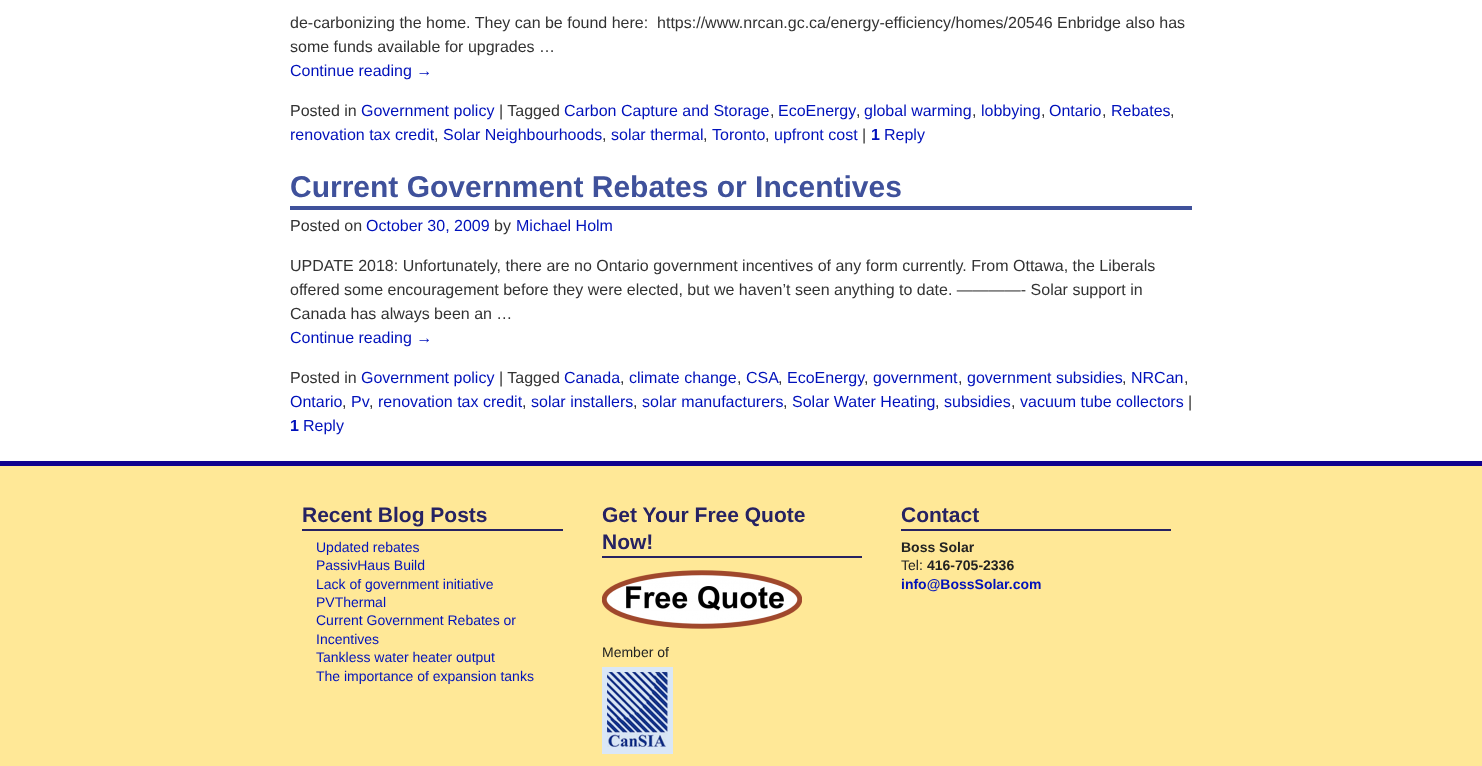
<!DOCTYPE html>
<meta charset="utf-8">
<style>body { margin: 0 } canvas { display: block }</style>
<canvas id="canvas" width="1482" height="766"></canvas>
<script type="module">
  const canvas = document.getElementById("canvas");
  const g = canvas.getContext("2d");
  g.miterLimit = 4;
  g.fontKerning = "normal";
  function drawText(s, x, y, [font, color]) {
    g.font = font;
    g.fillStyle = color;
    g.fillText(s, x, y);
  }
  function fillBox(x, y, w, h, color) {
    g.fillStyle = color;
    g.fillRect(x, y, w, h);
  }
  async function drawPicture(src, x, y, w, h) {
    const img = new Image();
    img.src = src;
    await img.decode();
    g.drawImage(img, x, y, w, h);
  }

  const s1 = ["16px Liberation Sans", "#333333"];
  const s2 = ["16px Liberation Sans", "#0011BB"];
  const s3 = ["bold 16px Liberation Sans", "#0011BB"];
  const s4 = ["bold 30px Liberation Sans", "#3F519B"];
  const s5 = ["bold 21px Liberation Sans", "#262262"];
  const s6 = ["14px Liberation Sans", "#0011BB"];
  const s7 = ["14px Liberation Sans", "#222222"];
  const s8 = ["bold 14px Liberation Sans", "#222222"];
  const s9 = ["bold 14px Liberation Sans", "#0011BB"];

  fillBox(0, 0, 1482, 766, "#FFFFFF");
  drawText("de-carbonizing the home. They can be found here:  https://www.nrcan.gc.ca/energy-efficiency/homes/20546 Enbridge also has", 290, 28, s1);
  drawText("some funds available for upgrades …", 290, 52, s1);
  drawText("Continue reading →", 290, 76, s2);
  drawText("Posted in", 290, 116, s1);
  drawText("Government policy", 361, 116, s2);
  drawText("| Tagged", 499, 116, s1);
  drawText("Carbon Capture and Storage", 564, 116, s2);
  drawText(",", 770, 116, s1);
  drawText("EcoEnergy", 778, 116, s2);
  drawText(",", 856, 116, s1);
  drawText("global warming", 864, 116, s2);
  drawText(",", 972, 116, s1);
  drawText("lobbying", 981, 116, s2);
  drawText(",", 1041, 116, s1);
  drawText("Ontario", 1049, 116, s2);
  drawText(",", 1102, 116, s1);
  drawText("Rebates", 1111, 116, s2);
  drawText(",", 1170, 116, s1);
  drawText("renovation tax credit", 290, 140, s2);
  drawText("Solar Neighbourhoods", 443, 140, s2);
  drawText("solar thermal", 611, 140, s2);
  drawText("Toronto", 712, 140, s2);
  drawText("upfront cost", 774, 140, s2);
  drawText("|", 862, 140, s1);
  drawText("1", 871, 140, s3);
  drawText("Reply", 884, 140, s2);
  drawText(",", 434, 140, s1);
  drawText(",", 602, 140, s1);
  drawText(",", 703, 140, s1);
  drawText(",", 765, 140, s1);
  fillBox(290, 206, 902, 4, "#3F519B");
  drawText("Current Government Rebates or Incentives", 290, 197, s4);
  drawText("Posted on", 290, 231, s1);
  drawText("October 30, 2009", 366, 231, s2);
  drawText("by", 494, 231, s1);
  drawText("Michael Holm", 516, 231, s2);
  drawText("UPDATE 2018: Unfortunately, there are no Ontario government incentives of any form currently. From Ottawa, the Liberals", 290, 271, s1);
  drawText("offered some encouragement before they were elected, but we haven’t seen anything to date. ————- Solar support in", 290, 295, s1);
  drawText("Canada has always been an …", 290, 319, s1);
  drawText("Continue reading →", 290, 343, s2);
  drawText("Posted in", 290, 383, s1);
  drawText("Government policy", 361, 383, s2);
  drawText("| Tagged", 499, 383, s1);
  drawText("Canada", 564, 383, s2);
  drawText(",", 620, 383, s1);
  drawText("climate change", 629, 383, s2);
  drawText(",", 737, 383, s1);
  drawText("CSA", 746, 383, s2);
  drawText(",", 778, 383, s1);
  drawText("EcoEnergy", 787, 383, s2);
  drawText(",", 864, 383, s1);
  drawText("government", 873, 383, s2);
  drawText(",", 958, 383, s1);
  drawText("government subsidies", 967, 383, s2);
  drawText(",", 1122, 383, s1);
  drawText("NRCan", 1131, 383, s2);
  drawText(",", 1184, 383, s1);
  drawText("Ontario", 290, 407, s2);
  drawText("Pv", 351, 407, s2);
  drawText("renovation tax credit", 378, 407, s2);
  drawText("solar installers", 531, 407, s2);
  drawText("solar manufacturers", 642, 407, s2);
  drawText("Solar Water Heating", 792, 407, s2);
  drawText("subsidies", 944, 407, s2);
  drawText("vacuum tube collectors", 1020, 407, s2);
  drawText("|", 1188, 407, s1);
  drawText(",", 342, 407, s1);
  drawText(",", 369, 407, s1);
  drawText(",", 522, 407, s1);
  drawText(",", 633, 407, s1);
  drawText(",", 783, 407, s1);
  drawText(",", 935, 407, s1);
  drawText(",", 1011, 407, s1);
  drawText("1", 290, 431, s3);
  drawText("Reply", 303, 431, s2);
  fillBox(0, 466, 1482, 300, "#FFE897");
  fillBox(0, 461, 1482, 5, "#10028F");
  fillBox(302, 529, 261, 2, "#262262");
  drawText("Recent Blog Posts", 302, 522, s5);
  drawText("Updated rebates", 316, 552, s6);
  drawText("PassivHaus Build", 316, 570, s6);
  drawText("Lack of government initiative", 316, 589, s6);
  drawText("PVThermal", 316, 607, s6);
  drawText("Current Government Rebates or", 316, 625, s6);
  drawText("Incentives", 316, 644, s6);
  drawText("Tankless water heater output", 316, 662, s6);
  drawText("The importance of expansion tanks", 316, 681, s6);
  fillBox(602, 556, 260, 2, "#262262");
  drawText("Get Your Free Quote", 602, 522, s5);
  drawText("Now!", 602, 549, s5);
  await drawPicture("pic1.png", 602, 570, 200, 59);
  drawText("Member of", 602, 657, s7);
  await drawPicture("pic2.png", 602, 667, 71, 87);
  fillBox(901, 529, 270, 2, "#262262");
  drawText("Contact", 901, 522, s5);
  drawText("Boss Solar", 901, 552, s8);
  drawText("Tel:", 901, 570, s7);
  drawText("416-705-2336", 927, 570, s8);
  drawText("info@BossSolar.com", 901, 589, s9);
</script>
